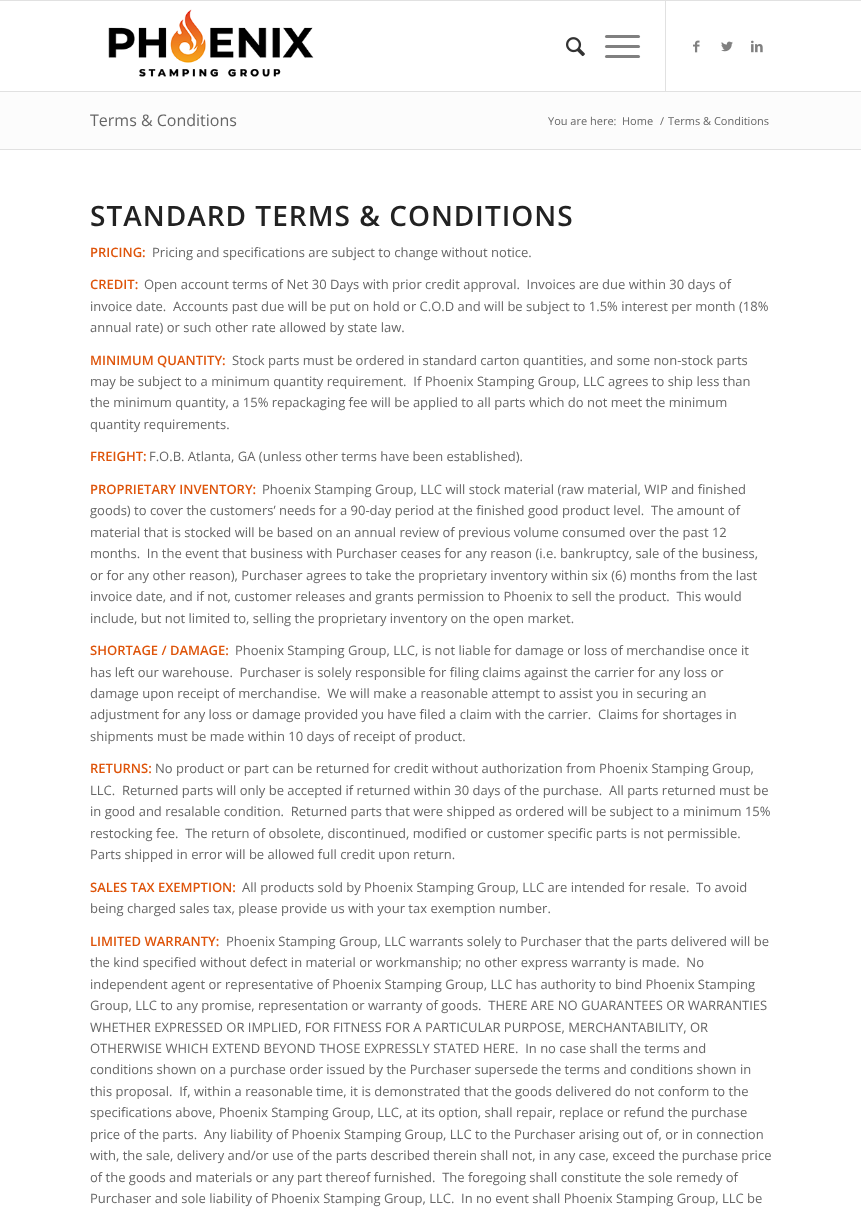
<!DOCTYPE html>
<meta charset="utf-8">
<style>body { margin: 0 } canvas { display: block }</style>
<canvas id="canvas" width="861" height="1207"></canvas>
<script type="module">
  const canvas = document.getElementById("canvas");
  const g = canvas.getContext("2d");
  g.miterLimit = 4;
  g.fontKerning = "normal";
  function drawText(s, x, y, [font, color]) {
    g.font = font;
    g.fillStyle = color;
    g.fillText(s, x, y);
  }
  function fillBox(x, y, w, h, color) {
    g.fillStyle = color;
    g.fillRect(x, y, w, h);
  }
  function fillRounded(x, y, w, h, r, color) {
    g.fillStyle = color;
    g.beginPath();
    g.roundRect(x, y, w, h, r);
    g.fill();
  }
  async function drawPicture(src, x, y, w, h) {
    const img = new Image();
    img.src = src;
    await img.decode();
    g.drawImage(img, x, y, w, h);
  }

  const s1 = ["16px Open Sans", "#666666"];
  const s2 = ["11px Open Sans", "#666666"];
  const s3 = ["600 28px Open Sans", "#222222"];
  const s4 = ["600 13px Open Sans", "#DE540A"];
  const s5 = ["13px Open Sans", "#666666"];

  fillBox(0, 0, 861, 1207, "#FFFFFF");
  fillBox(0, 0, 861, 1, "#E1E1E1");
  fillBox(0, 91, 861, 1, "#E1E1E1");
  await drawPicture("pic1.png", 108, 9, 206, 68);
  fillBox(665, 1, 1, 90, "#E1E1E1");
  await drawPicture("pic2.png", 566, 37, 19, 20);
  fillRounded(605, 45, 35, 3, 1.5, "#808080");
  fillRounded(605, 35, 35, 3, 1.5, "#808080");
  fillRounded(605, 55, 35, 3, 1.5, "#808080");
  await drawPicture("pic3.png", 693, 40, 7, 13);
  await drawPicture("pic4.png", 721, 41, 12, 11);
  await drawPicture("pic5.png", 751, 40, 12, 13);
  fillBox(0, 92, 861, 57, "#FCFCFC");
  drawText("Terms & Conditions", 90, 126, s1);
  drawText("You are here:", 548, 125, s2);
  drawText("Home", 622, 125, s2);
  drawText("/", 660, 125, s2);
  drawText("Terms & Conditions", 668, 125, s2);
  fillBox(0, 149, 861, 1, "#E1E1E1");
  g.letterSpacing = "1px";
  drawText("STANDARD TERMS & CONDITIONS", 90, 226, s3);
  g.letterSpacing = "0px";
  drawText("PRICING:", 90, 257, s4);
  drawText("Pricing and specifications are subject to change without notice.", 152, 257, s5);
  drawText("CREDIT:", 90, 289, s4);
  drawText("Open account terms of Net 30 Days with prior credit approval.  Invoices are due within 30 days of", 144, 289, s5);
  drawText("invoice date.  Accounts past due will be put on hold or C.O.D and will be subject to 1.5% interest per month (18%", 90, 311, s5);
  drawText("annual rate) or such other rate allowed by state law.", 90, 332, s5);
  drawText("MINIMUM QUANTITY:", 90, 365, s4);
  drawText("Stock parts must be ordered in standard carton quantities, and some non-stock parts", 232, 365, s5);
  drawText("may be subject to a minimum quantity requirement.  If Phoenix Stamping Group, LLC agrees to ship less than", 90, 386, s5);
  drawText("the minimum quantity, a 15% repackaging fee will be applied to all parts which do not meet the minimum", 90, 407, s5);
  drawText("quantity requirements.", 90, 429, s5);
  drawText("FREIGHT:", 90, 461, s4);
  drawText("F.O.B. Atlanta, GA (unless other terms have been established).", 149, 461, s5);
  drawText("PROPRIETARY INVENTORY:", 90, 494, s4);
  drawText("Phoenix Stamping Group, LLC will stock material (raw material, WIP and finished", 262, 494, s5);
  drawText("goods) to cover the customers’ needs for a 90-day period at the finished good product level.  The amount of", 90, 515, s5);
  drawText("material that is stocked will be based on an annual review of previous volume consumed over the past 12", 90, 537, s5);
  drawText("months.  In the event that business with Purchaser ceases for any reason (i.e. bankruptcy, sale of the business,", 90, 558, s5);
  drawText("or for any other reason), Purchaser agrees to take the proprietary inventory within six (6) months from the last", 90, 580, s5);
  drawText("invoice date, and if not, customer releases and grants permission to Phoenix to sell the product.  This would", 90, 601, s5);
  drawText("include, but not limited to, selling the proprietary inventory on the open market.", 90, 623, s5);
  drawText("SHORTAGE / DAMAGE:", 90, 655, s4);
  drawText("Phoenix Stamping Group, LLC, is not liable for damage or loss of merchandise once it", 235, 655, s5);
  drawText("has left our warehouse.  Purchaser is solely responsible for filing claims against the carrier for any loss or", 90, 677, s5);
  drawText("damage upon receipt of merchandise.  We will make a reasonable attempt to assist you in securing an", 90, 698, s5);
  drawText("adjustment for any loss or damage provided you have filed a claim with the carrier.  Claims for shortages in", 90, 719, s5);
  drawText("shipments must be made within 10 days of receipt of product.", 90, 741, s5);
  drawText("RETURNS:", 90, 773, s4);
  drawText("No product or part can be returned for credit without authorization from Phoenix Stamping Group,", 155, 773, s5);
  drawText("LLC.  Returned parts will only be accepted if returned within 30 days of the purchase.  All parts returned must be", 90, 795, s5);
  drawText("in good and resalable condition.  Returned parts that were shipped as ordered will be subject to a minimum 15%", 90, 816, s5);
  drawText("restocking fee.  The return of obsolete, discontinued, modified or customer specific parts is not permissible.", 90, 838, s5);
  drawText("Parts shipped in error will be allowed full credit upon return.", 90, 859, s5);
  drawText("SALES TAX EXEMPTION:", 90, 892, s4);
  drawText("All products sold by Phoenix Stamping Group, LLC are intended for resale.  To avoid", 242, 892, s5);
  drawText("being charged sales tax, please provide us with your tax exemption number.", 90, 913, s5);
  drawText("LIMITED WARRANTY:", 90, 946, s4);
  drawText("Phoenix Stamping Group, LLC warrants solely to Purchaser that the parts delivered will be", 226, 946, s5);
  drawText("the kind specified without defect in material or workmanship; no other express warranty is made.  No", 90, 967, s5);
  drawText("independent agent or representative of Phoenix Stamping Group, LLC has authority to bind Phoenix Stamping", 90, 989, s5);
  drawText("Group, LLC to any promise, representation or warranty of goods.  THERE ARE NO GUARANTEES OR WARRANTIES", 90, 1010, s5);
  drawText("WHETHER EXPRESSED OR IMPLIED, FOR FITNESS FOR A PARTICULAR PURPOSE, MERCHANTABILITY, OR", 90, 1032, s5);
  drawText("OTHERWISE WHICH EXTEND BEYOND THOSE EXPRESSLY STATED HERE.  In no case shall the terms and", 90, 1053, s5);
  drawText("conditions shown on a purchase order issued by the Purchaser supersede the terms and conditions shown in", 90, 1074, s5);
  drawText("this proposal.  If, within a reasonable time, it is demonstrated that the goods delivered do not conform to the", 90, 1096, s5);
  drawText("specifications above, Phoenix Stamping Group, LLC, at its option, shall repair, replace or refund the purchase", 90, 1117, s5);
  drawText("price of the parts.  Any liability of Phoenix Stamping Group, LLC to the Purchaser arising out of, or in connection", 90, 1139, s5);
  drawText("with, the sale, delivery and/or use of the parts described therein shall not, in any case, exceed the purchase price", 90, 1160, s5);
  drawText("of the goods and materials or any part thereof furnished.  The foregoing shall constitute the sole remedy of", 90, 1182, s5);
  drawText("Purchaser and sole liability of Phoenix Stamping Group, LLC.  In no event shall Phoenix Stamping Group, LLC be", 90, 1203, s5);
</script>
